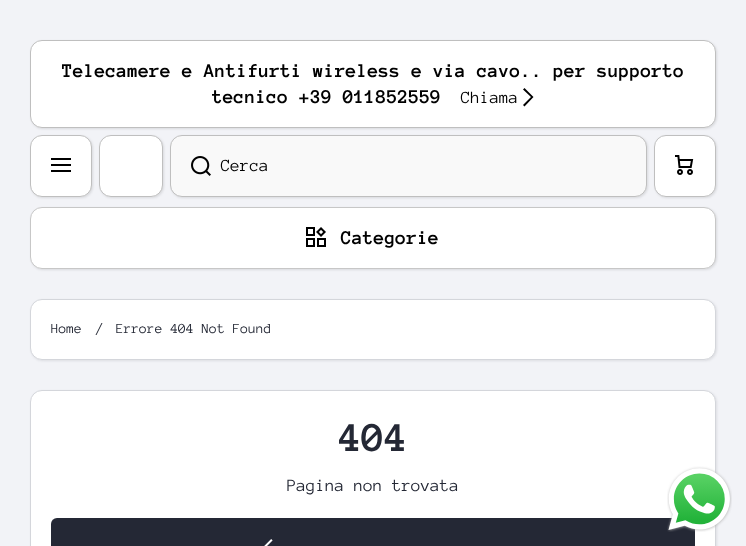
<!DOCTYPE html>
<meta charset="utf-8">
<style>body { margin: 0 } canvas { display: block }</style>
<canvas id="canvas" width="746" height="546"></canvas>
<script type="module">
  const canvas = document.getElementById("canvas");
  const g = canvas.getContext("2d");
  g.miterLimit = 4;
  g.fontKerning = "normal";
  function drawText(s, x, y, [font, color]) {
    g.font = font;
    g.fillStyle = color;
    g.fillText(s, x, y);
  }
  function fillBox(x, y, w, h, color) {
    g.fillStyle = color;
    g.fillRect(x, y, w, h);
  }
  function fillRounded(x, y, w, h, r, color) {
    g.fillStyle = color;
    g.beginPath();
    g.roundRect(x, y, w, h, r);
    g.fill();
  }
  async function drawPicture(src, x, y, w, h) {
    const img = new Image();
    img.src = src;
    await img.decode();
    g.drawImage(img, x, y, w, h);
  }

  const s1 = ["bold 20px Anonymous Pro", "#000000"];
  const s2 = ["17.5px Anonymous Pro", "#000000"];
  const s3 = ["14.25px Anonymous Pro", "#242835"];
  const s4 = ["bold 42px Anonymous Pro", "#242835"];
  const s5 = ["17.5px Anonymous Pro", "#242835"];

  fillBox(0, 0, 746, 546, "#F2F3F7");
  g.fillStyle = "rgba(0, 0, 0, 0.1)";
  g.filter = "blur(1px)";
  g.beginPath();
  g.roundRect(31, 41, 686, 88, 12);
  g.fill();
  g.filter = "none";
  g.fillStyle = "#FFFFFF";
  g.beginPath();
  g.roundRect(30.5, 40.5, 685, 87, 11.5);
  g.fill();
  g.strokeStyle = "#BFBFBF";
  g.stroke();
  drawText("Telecamere e Antifurti wireless e via cavo.. per supporto", 62, 77, s1);
  drawText("tecnico +39 011852559", 212, 103, s1);
  drawText("Chiama", 461, 103, s2);
  g.beginPath();
  g.moveTo(524.5, 88);
  g.lineTo(523, 89.5);
  g.lineTo(531, 97);
  g.lineTo(523, 105);
  g.lineTo(524.5, 106.5);
  g.lineTo(533.5, 97);
  g.closePath();
  g.fill("evenodd");
  g.fillStyle = "rgba(0, 0, 0, 0.1)";
  g.filter = "blur(1px)";
  g.beginPath();
  g.roundRect(31, 136, 62, 62, 12);
  g.fill();
  g.filter = "none";
  g.fillStyle = "#FFFFFF";
  g.beginPath();
  g.roundRect(30.5, 135.5, 61, 61, 11.5);
  g.fill();
  g.stroke();
  fillBox(51, 158, 20, 2, "#000000");
  fillBox(51, 164, 20, 2, "#000000");
  fillBox(51, 170, 20, 2, "#000000");
  g.fillStyle = "rgba(0, 0, 0, 0.1)";
  g.filter = "blur(1px)";
  g.beginPath();
  g.roundRect(100, 136, 64, 62, 12);
  g.fill();
  g.filter = "none";
  g.fillStyle = "#FFFFFF";
  g.beginPath();
  g.roundRect(99.5, 135.5, 63, 61, 11.5);
  g.fill();
  g.stroke();
  g.fillStyle = "rgba(0, 0, 0, 0.1)";
  g.filter = "blur(1px)";
  g.beginPath();
  g.roundRect(171, 136, 477, 62, 12);
  g.fill();
  g.filter = "none";
  g.fillStyle = "#F9F9F9";
  g.beginPath();
  g.roundRect(170.5, 135.5, 476, 61, 11.5);
  g.fill();
  g.stroke();
  await drawPicture("pic1.png", 191, 156, 20, 20);
  drawText("Cerca", 221, 171, s2);
  g.fillStyle = "rgba(0, 0, 0, 0.1)";
  g.filter = "blur(1px)";
  g.beginPath();
  g.roundRect(655, 136, 62, 62, 12);
  g.fill();
  g.filter = "none";
  g.fillStyle = "#FFFFFF";
  g.beginPath();
  g.roundRect(654.5, 135.5, 61, 61, 11.5);
  g.fill();
  g.stroke();
  await drawPicture("pic2.png", 675, 155, 19, 20);
  g.fillStyle = "rgba(0, 0, 0, 0.1)";
  g.filter = "blur(1px)";
  g.beginPath();
  g.roundRect(31, 208, 686, 62, 12);
  g.fill();
  g.filter = "none";
  g.fillStyle = "#FFFFFF";
  g.beginPath();
  g.roundRect(30.5, 207.5, 685, 61, 11.5);
  g.fill();
  g.strokeStyle = "#C7C7C7";
  g.stroke();
  await drawPicture("pic3.png", 306, 227, 20, 20);
  drawText("Categorie", 341, 244, s1);
  g.fillStyle = "rgba(36, 40, 53, 0.1)";
  g.filter = "blur(1px)";
  g.beginPath();
  g.roundRect(31, 300, 686, 61, 12);
  g.fill();
  g.filter = "none";
  g.fillStyle = "#FFFFFF";
  g.beginPath();
  g.roundRect(30.5, 299.5, 685, 60, 11.5);
  g.fill();
  g.strokeStyle = "#D4D6DB";
  g.stroke();
  drawText("Home", 51, 333, s3);
  g.beginPath();
  g.moveTo(95.5, 335);
  g.lineTo(101.5, 323);
  g.lineTo(102.5, 323);
  g.lineTo(96.5, 335);
  g.closePath();
  g.fill("evenodd");
  drawText("Errore 404 Not Found", 116, 333, s3);
  g.fillStyle = "rgba(36, 40, 53, 0.1)";
  g.filter = "blur(1px)";
  g.beginPath();
  g.roundRect(31, 391, 686, 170, 12);
  g.fill();
  g.filter = "none";
  g.fillStyle = "#FFFFFF";
  g.beginPath();
  g.roundRect(30.5, 390.5, 685, 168, 11.5);
  g.fill();
  g.stroke();
  drawText("404", 339, 451, s4);
  drawText("Pagina non trovata", 287, 491, s5);
  fillRounded(51, 518, 644, 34, 6, "#242835");
  await drawPicture("pic4.png", 264, 539, 9, 7);
  await drawPicture("pic5.png", 667, 466, 65, 66);
</script>
